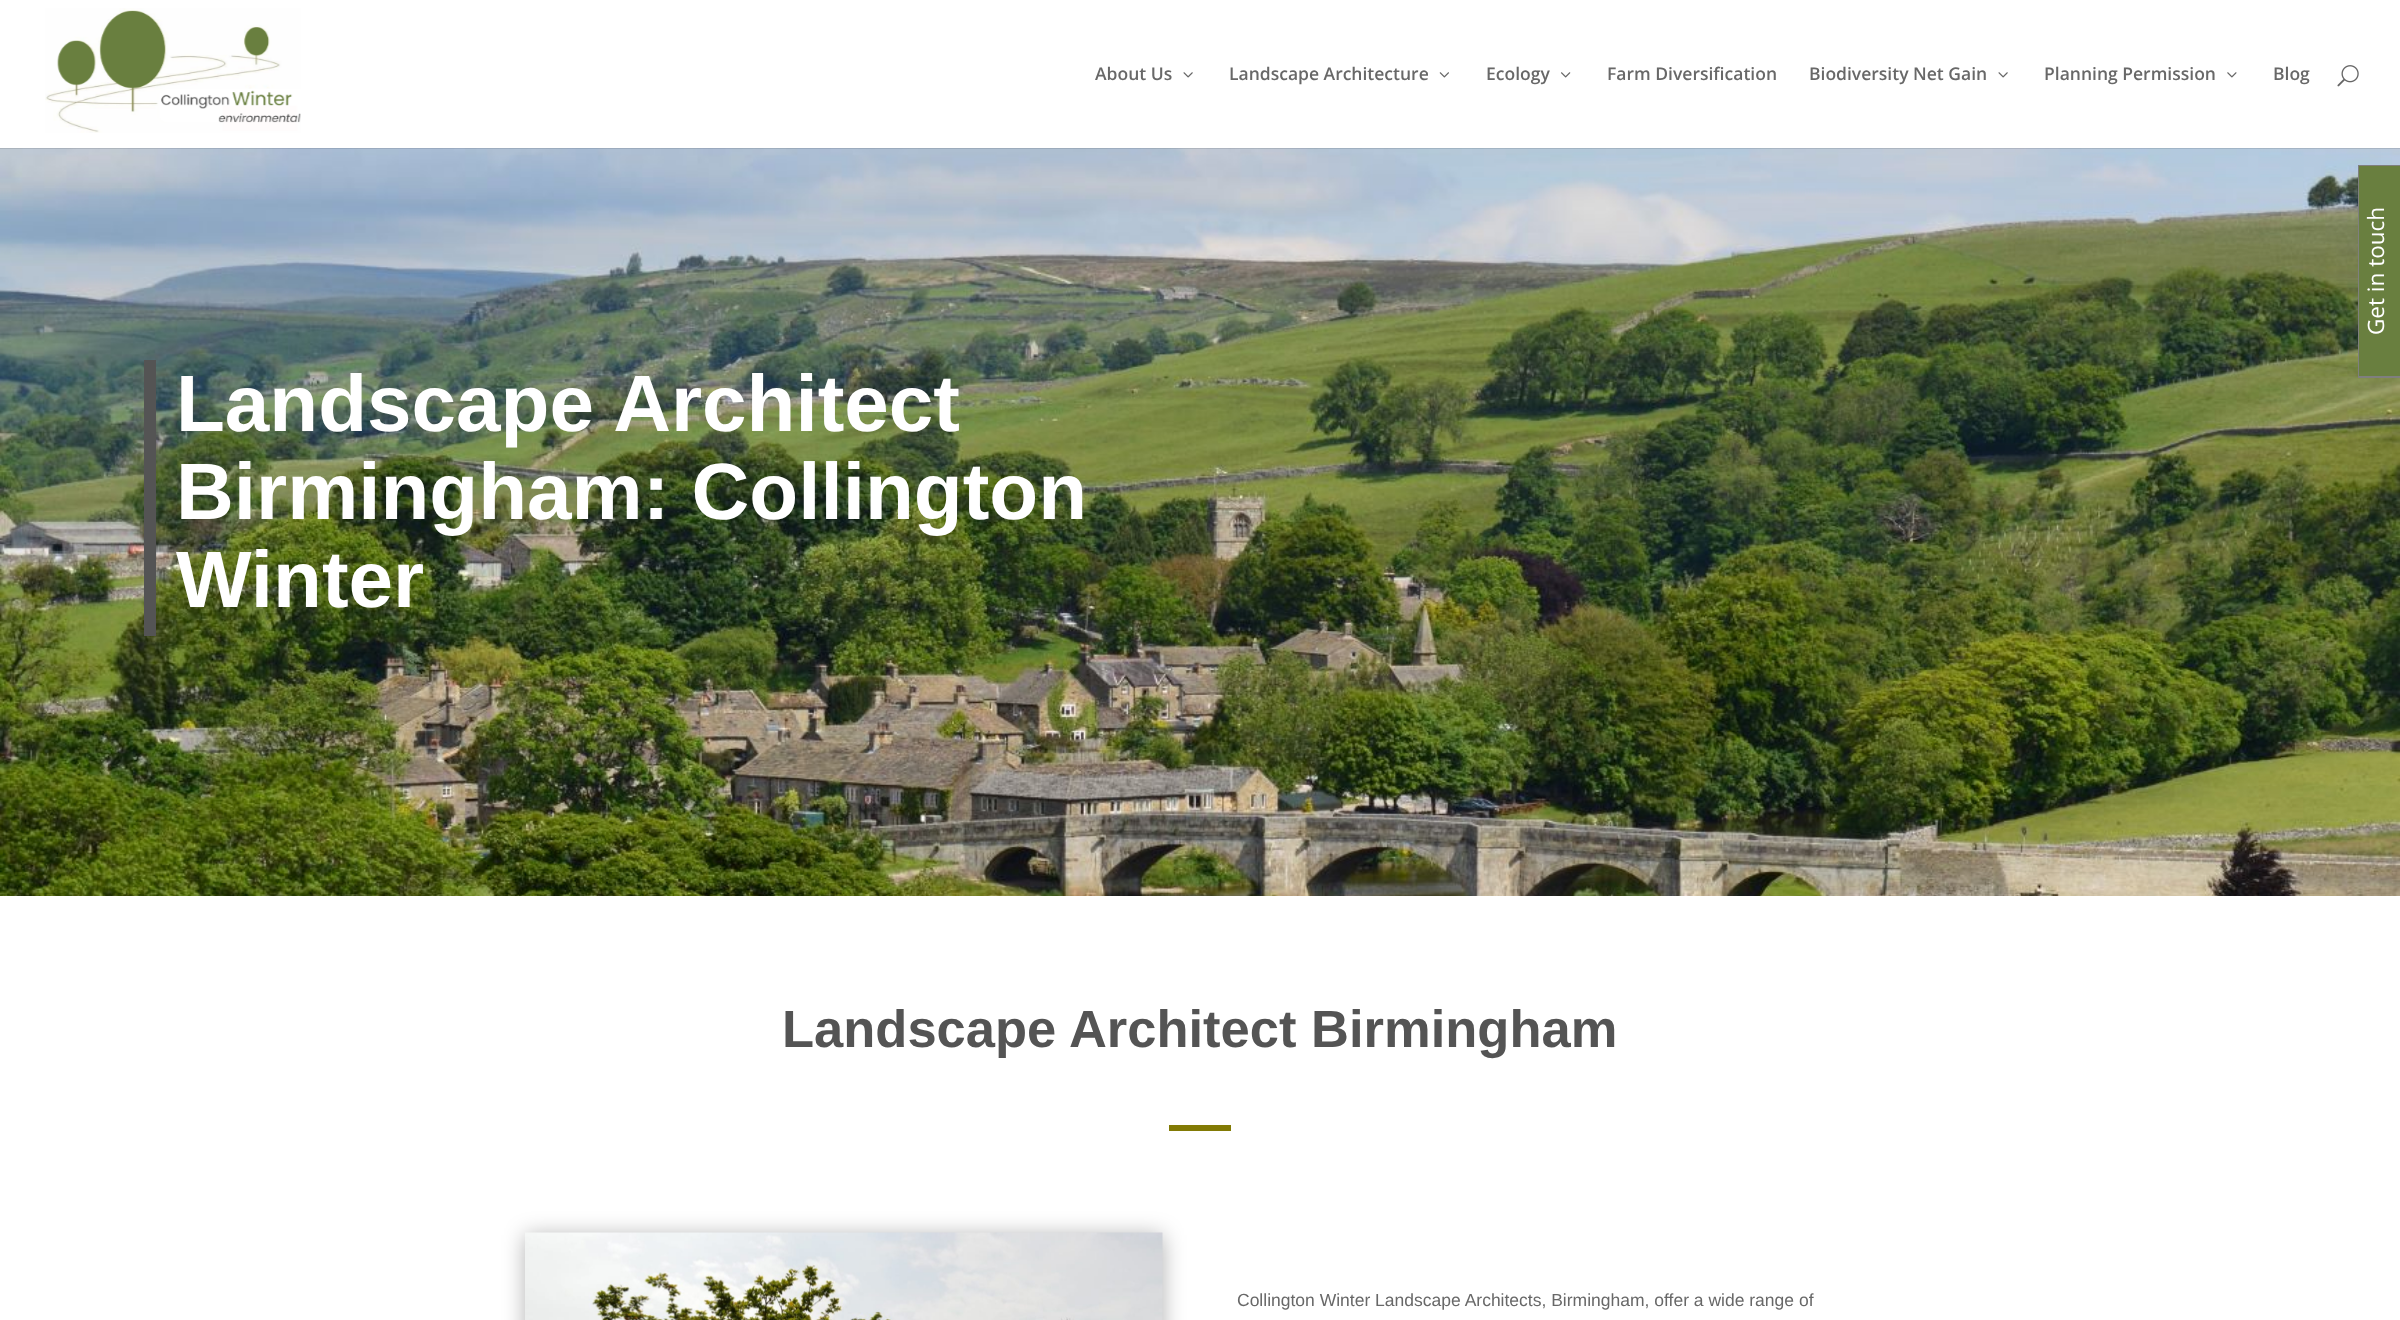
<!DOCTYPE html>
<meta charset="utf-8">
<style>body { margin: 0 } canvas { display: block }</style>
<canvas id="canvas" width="2400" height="1320"></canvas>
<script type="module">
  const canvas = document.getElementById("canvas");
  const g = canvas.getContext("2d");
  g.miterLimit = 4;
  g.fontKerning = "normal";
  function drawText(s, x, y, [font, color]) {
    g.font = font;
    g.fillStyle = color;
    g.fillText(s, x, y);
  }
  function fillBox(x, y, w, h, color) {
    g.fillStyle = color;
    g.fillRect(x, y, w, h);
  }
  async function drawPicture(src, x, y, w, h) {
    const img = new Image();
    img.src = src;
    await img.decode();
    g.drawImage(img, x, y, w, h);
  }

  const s1 = ["600 17.5px Open Sans", "#686868"];
  const s2 = ["bold 80px Liberation Sans", "#FFFFFF"];
  const s3 = ["bold 52.5px Liberation Sans", "#545454"];
  const s4 = ["17.5px Liberation Sans", "#686868"];

  fillBox(0, 0, 2400, 1320, "#FFFFFF");
  await drawPicture("pic7.png", 0, 148, 2400, 748);
  fillBox(0, 148, 2400, 1, "rgba(0, 0, 0, 0.1)");
  await drawPicture("pic1.png", 45, 8, 256, 125);
  drawText("About Us", 1095, 80, s1);
  await drawPicture("pic2.png", 1183, 72, 10, 6);
  drawText("Landscape Architecture", 1229, 80, s1);
  await drawPicture("pic3.png", 1439, 72, 10, 6);
  drawText("Ecology", 1486, 80, s1);
  await drawPicture("pic4.png", 1561, 72, 10, 6);
  drawText("Farm Diversification", 1607, 80, s1);
  drawText("Biodiversity Net Gain", 1809, 80, s1);
  await drawPicture("pic2.png", 1998, 72, 10, 6);
  drawText("Planning Permission", 2044, 80, s1);
  await drawPicture("pic5.png", 2227, 72, 10, 6);
  drawText("Blog", 2273, 80, s1);
  await drawPicture("pic6.png", 2337, 65, 22, 22);
  fillBox(144, 360, 12, 276, "#545454");
  drawText("Landscape Architect", 176, 431, s2);
  drawText("Birmingham: Collington", 176, 519, s2);
  drawText("Winter", 176, 607, s2);
  drawText("Landscape Architect Birmingham", 782, 1047, s3);
  fillBox(1169, 1125, 62, 6, "#827A04");
  g.fillStyle = "rgba(0, 0, 0, 0.3)";
  g.filter = "blur(11px)";
  g.beginPath();
  g.rect(525, 1235, 638, 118);
  g.fill();
  g.filter = "none";
  await drawPicture("pic8.png", 525, 1232, 638, 88);
  drawText("Collington Winter Landscape Architects, Birmingham, offer a wide range of", 1237, 1306, s4);
  fillBox(2359, 166, 41, 210, "#697F3F");
  fillBox(2358, 165, 1, 213, "#7F7F7F");
  fillBox(2358, 165, 42, 1, "#7F7F7F");
  fillBox(2358, 376, 42, 2, "#7F7F7F");
  g.font = "22.5px Open Sans";
  g.fillStyle = "#FFFFFF";
  g.save();
  g.translate(2384, 335);
  g.rotate(-90 * Math.PI / 180);
  g.fillText("Get in touch", 0, 0);
  g.restore();
</script>
